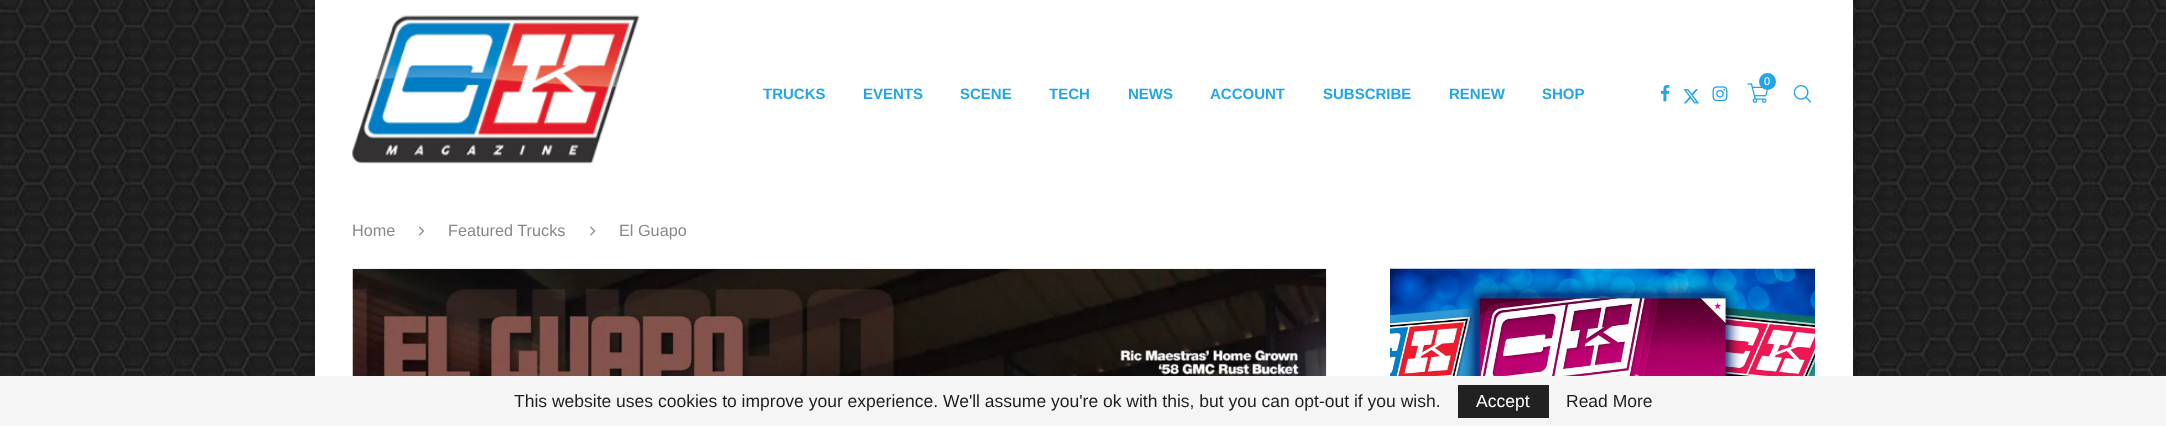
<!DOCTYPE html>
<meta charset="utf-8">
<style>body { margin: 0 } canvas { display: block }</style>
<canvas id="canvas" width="2166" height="426"></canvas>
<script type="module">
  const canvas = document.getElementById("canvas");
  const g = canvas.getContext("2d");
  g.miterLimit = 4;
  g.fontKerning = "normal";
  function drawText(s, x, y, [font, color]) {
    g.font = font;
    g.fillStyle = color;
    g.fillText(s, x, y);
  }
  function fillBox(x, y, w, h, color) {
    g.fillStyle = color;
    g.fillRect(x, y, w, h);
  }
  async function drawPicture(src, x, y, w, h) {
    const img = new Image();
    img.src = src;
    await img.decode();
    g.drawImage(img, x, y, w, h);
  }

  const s1 = ["11px Liberation Sans", "#FFFFFF"];
  const s2 = ["bold 15px Liberation Sans", "#24A5E5"];
  const s3 = ["16.25px Liberation Sans", "#888888"];
  const s4 = ["17.5px Liberation Sans", "#1E1E1E"];
  const s5 = ["17.5px Liberation Sans", "#FFFFFF"];

  fillBox(0, 0, 2166, 426, "#FFFFFF");
  await drawPicture("pic1.png", 0, 0, 2166, 376);
  g.fillStyle = "rgba(0, 0, 0, 0.2)";
  g.filter = "blur(5px)";
  g.beginPath();
  g.rect(315, 6, 1538, 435);
  g.fill();
  g.filter = "none";
  fillBox(315, 0, 1538, 376, "#FFFFFF");
  await drawPicture("pic2.png", 352, 15, 288, 149);
  await drawPicture("pic3.png", 1747, 83, 22, 20);
  g.fillStyle = "#24A5E5";
  g.beginPath();
  g.arc(1767.5, 81.5, 8.5, 0, Math.PI * 2);
  g.fill();
  drawText("0", 1764, 85, s1);
  drawText("TRUCKS", 763, 99, s2);
  drawText("EVENTS", 863, 99, s2);
  drawText("SCENE", 960, 99, s2);
  drawText("TECH", 1049, 99, s2);
  drawText("NEWS", 1128, 99, s2);
  drawText("ACCOUNT", 1210, 99, s2);
  drawText("SUBSCRIBE", 1323, 99, s2);
  drawText("RENEW", 1449, 99, s2);
  drawText("SHOP", 1542, 99, s2);
  await drawPicture("pic4.png", 1660, 85, 10, 17);
  await drawPicture("pic5.png", 1683, 89, 16, 15);
  await drawPicture("pic6.png", 1712, 86, 16, 16);
  await drawPicture("pic7.png", 1793, 85, 19, 18);
  drawText("Home", 352, 236, s3);
  await drawPicture("pic8.png", 418, 226, 6, 10);
  drawText("Featured Trucks", 448, 236, s3);
  await drawPicture("pic9.png", 590, 226, 6, 10);
  drawText("El Guapo", 619, 236, s3);
  await drawPicture("pic10.png", 352, 268, 975, 108);
  await drawPicture("pic11.png", 1390, 268, 425, 108);
  fillBox(0, 376, 2166, 50, "#F5F5F5");
  drawText("This website uses cookies to improve your experience. We'll assume you're ok with this, but you can opt-out if you wish.", 514, 407, s4);
  fillBox(1458, 385, 91, 33, "#212121");
  drawText("Accept", 1476, 407, s5);
  drawText("Read More", 1566, 407, s4);
</script>
